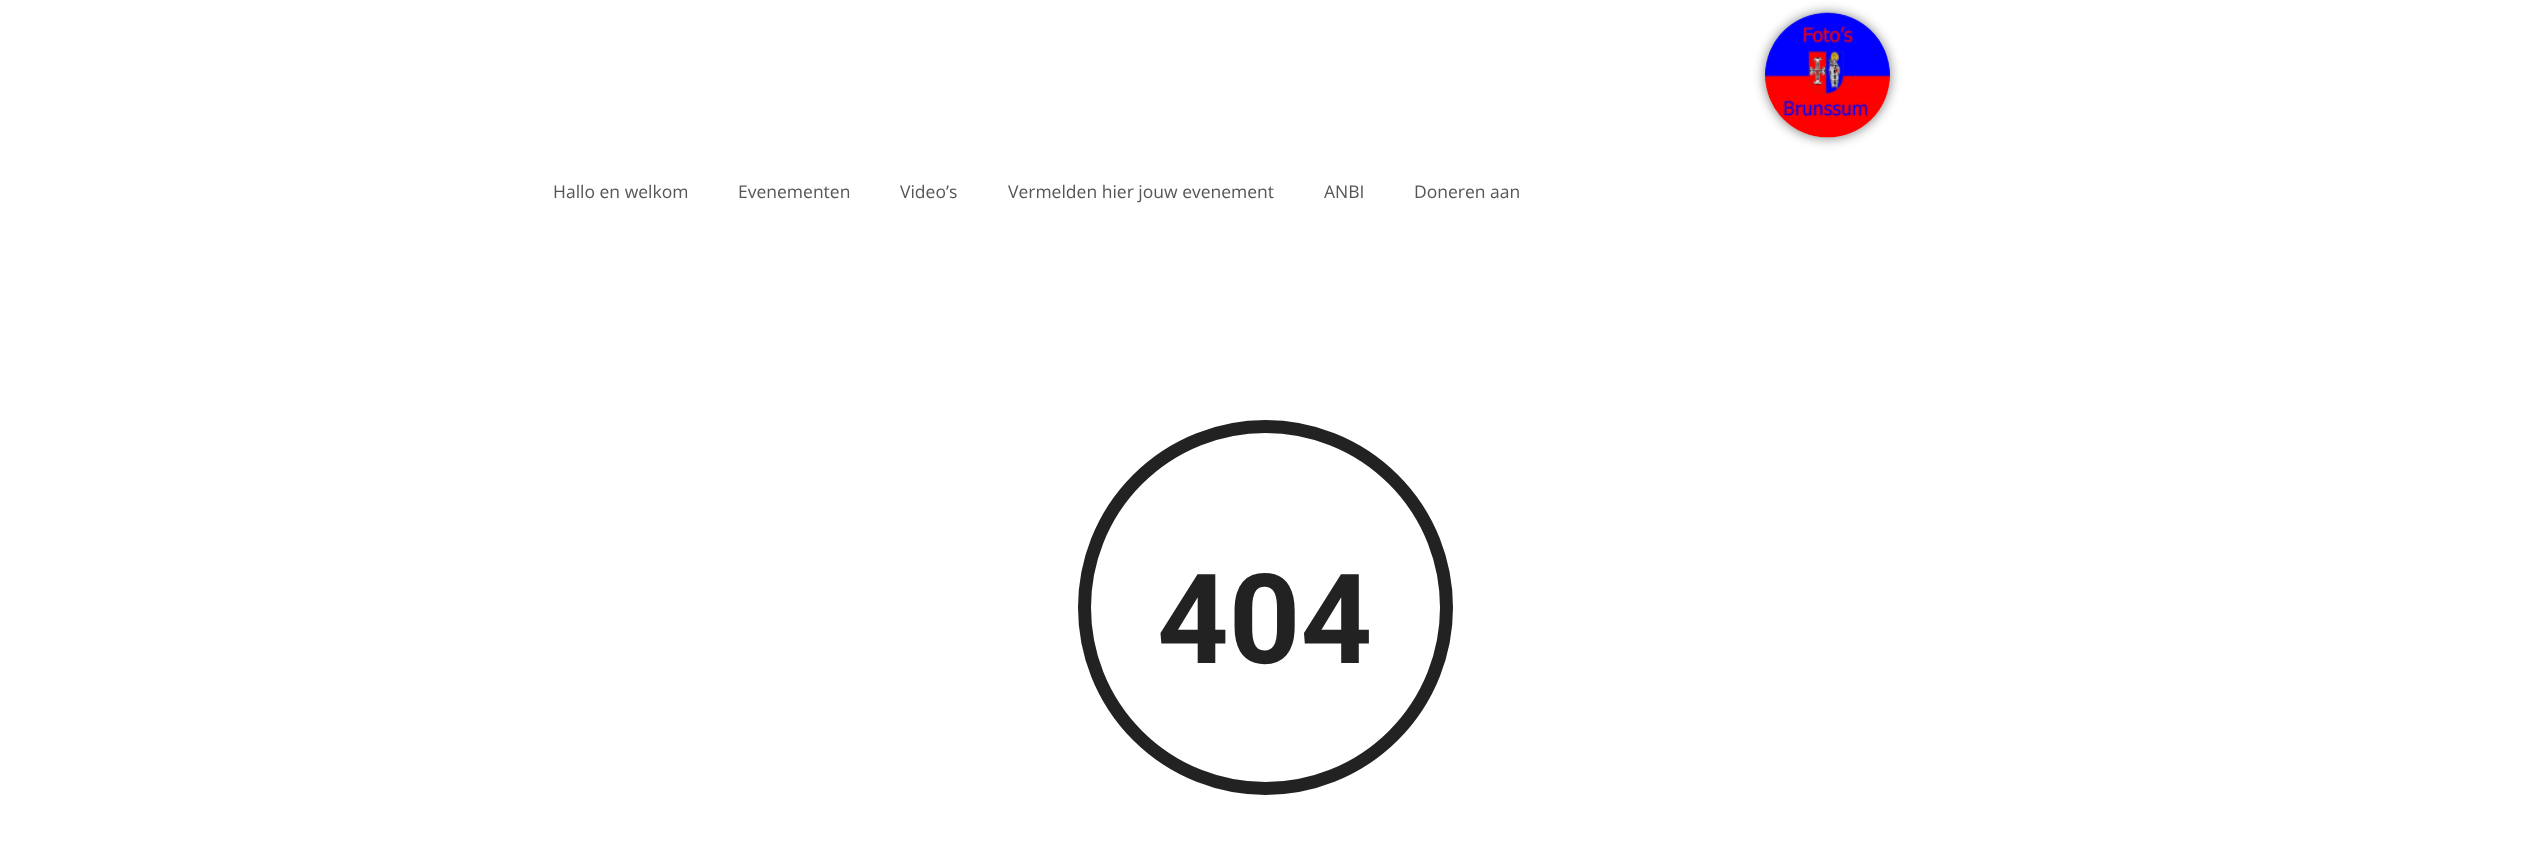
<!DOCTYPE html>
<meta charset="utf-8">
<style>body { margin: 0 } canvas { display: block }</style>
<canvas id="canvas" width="2530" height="852"></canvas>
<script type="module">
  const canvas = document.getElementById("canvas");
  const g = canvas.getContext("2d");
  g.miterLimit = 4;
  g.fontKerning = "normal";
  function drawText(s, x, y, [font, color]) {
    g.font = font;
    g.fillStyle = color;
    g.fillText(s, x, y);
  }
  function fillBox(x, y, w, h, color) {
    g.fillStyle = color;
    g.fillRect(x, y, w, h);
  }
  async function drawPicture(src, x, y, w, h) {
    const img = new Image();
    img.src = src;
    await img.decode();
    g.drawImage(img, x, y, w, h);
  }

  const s1 = ["17.5px Open Sans", "#555555"];
  const s2 = ["bold 125px Roboto", "#222222"];

  fillBox(0, 0, 2530, 852, "#FFFFFF");
  g.fillStyle = "rgba(0, 0, 0, 0.5)";
  g.filter = "blur(6px)";
  g.beginPath();
  g.roundRect(1765, 13, 125, 125, 62.5);
  g.fill();
  g.filter = "none";
  await drawPicture("pic1.png", 1765, 12, 125, 126);
  drawText("Hallo en welkom", 553, 198, s1);
  drawText("Evenementen", 738, 198, s1);
  drawText("Video’s", 900, 198, s1);
  drawText("Vermelden hier jouw evenement", 1008, 198, s1);
  drawText("ANBI", 1324, 198, s1);
  drawText("Doneren aan", 1414, 198, s1);
  g.beginPath();
  g.arc(1265.5, 607.5, 181, 0, Math.PI * 2);
  g.strokeStyle = "#222222";
  g.lineWidth = 13;
  g.stroke();
  drawText("404", 1157, 663, s2);
</script>
